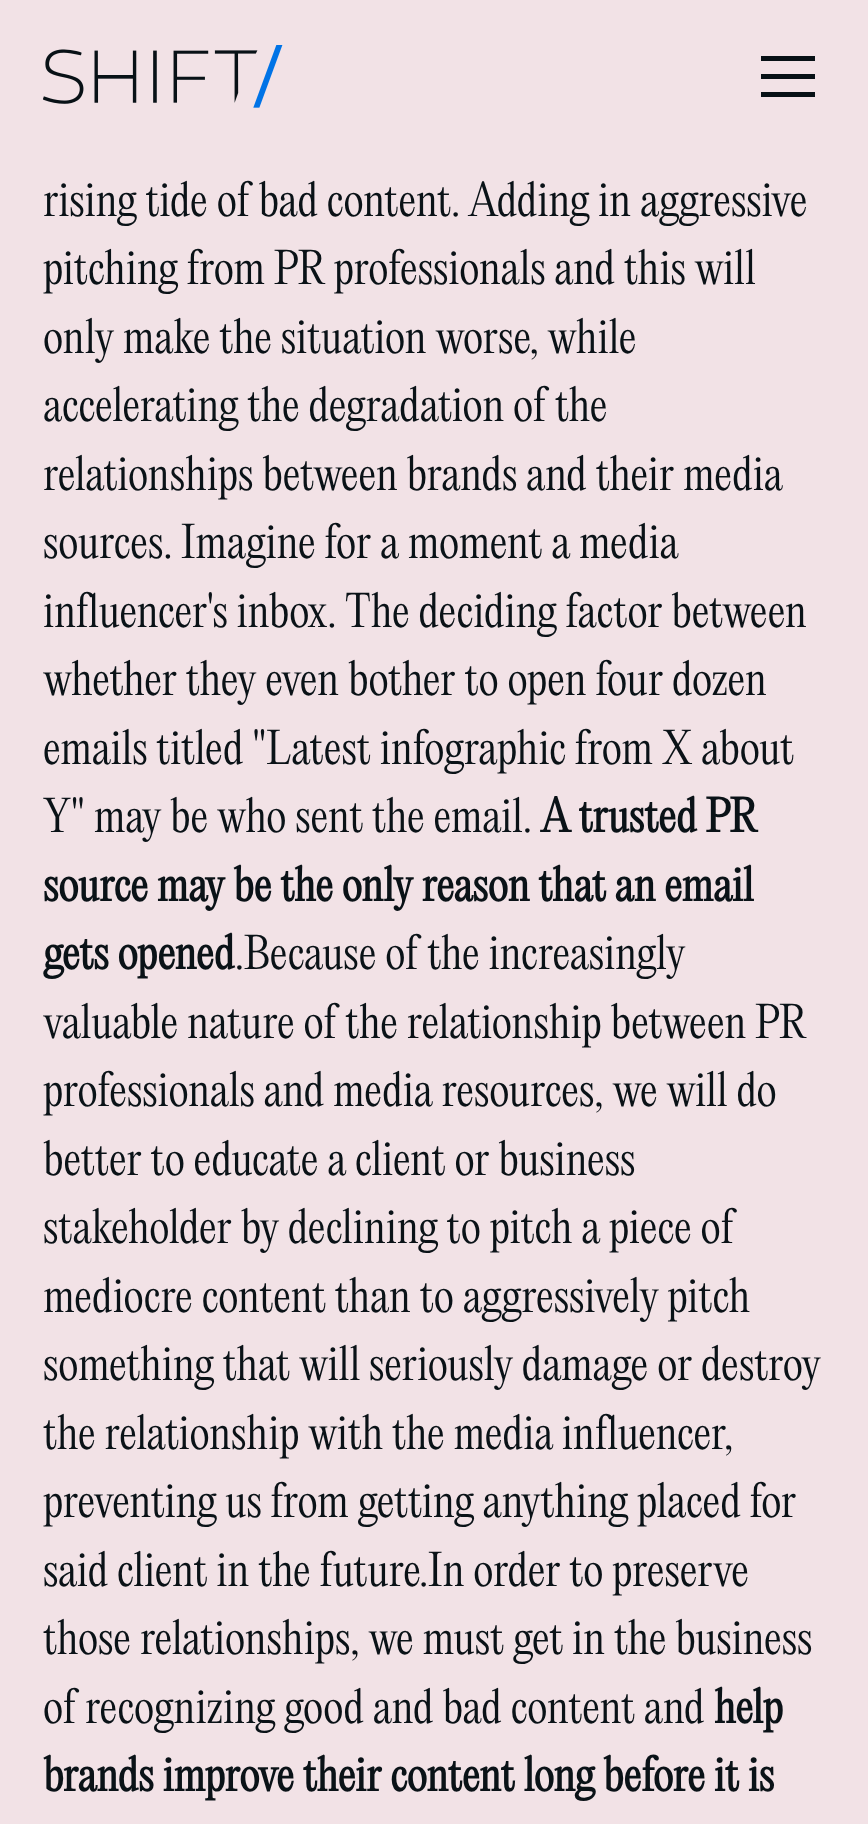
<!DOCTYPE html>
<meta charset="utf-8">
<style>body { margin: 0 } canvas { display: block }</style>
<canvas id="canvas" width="868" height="1824"></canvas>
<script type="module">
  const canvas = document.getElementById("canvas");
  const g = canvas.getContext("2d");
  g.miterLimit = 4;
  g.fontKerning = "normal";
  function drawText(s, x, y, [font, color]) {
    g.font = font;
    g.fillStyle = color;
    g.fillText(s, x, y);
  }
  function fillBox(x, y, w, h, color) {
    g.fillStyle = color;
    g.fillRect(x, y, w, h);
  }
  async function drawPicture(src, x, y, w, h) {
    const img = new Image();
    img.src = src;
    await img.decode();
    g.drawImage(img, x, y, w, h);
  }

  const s1 = ["300 42.8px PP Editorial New", "#0A1217"];
  const s2 = ["bold 42.8px PP Editorial New", "#0A1217"];

  fillBox(0, 0, 868, 1824, "#F2E2E6");
  await drawPicture("pic1.png", 43, 45, 240, 63);
  fillBox(761, 56, 54, 5, "#081116");
  fillBox(761, 74, 54, 5, "#081116");
  fillBox(761, 92, 54, 5, "#081116");
  drawText("rising tide of bad content. Adding in aggressive", 43, 216, s1);
  drawText("pitching from PR professionals and this will", 43, 284, s1);
  drawText("only make the situation worse, while", 43, 353, s1);
  drawText("accelerating the degradation of the", 43, 421, s1);
  drawText("relationships between brands and their media", 43, 490, s1);
  drawText("sources. Imagine for a moment a media", 43, 558, s1);
  drawText("influencer's inbox. The deciding factor between", 43, 627, s1);
  drawText("whether they even bother to open four dozen", 43, 695, s1);
  drawText("emails titled \"Latest infographic from X about", 43, 764, s1);
  drawText("Y\" may be who sent the email.", 43, 832, s1);
  drawText("A trusted PR", 541, 832, s2);
  drawText("source may be the only reason that an email", 43, 901, s2);
  drawText("gets opened", 43, 969, s2);
  drawText(".Because of the increasingly", 235, 969, s1);
  drawText("valuable nature of the relationship between PR", 43, 1038, s1);
  drawText("professionals and media resources, we will do", 43, 1106, s1);
  drawText("better to educate a client or business", 43, 1175, s1);
  drawText("stakeholder by declining to pitch a piece of", 43, 1243, s1);
  drawText("mediocre content than to aggressively pitch", 43, 1312, s1);
  drawText("something that will seriously damage or destroy", 43, 1380, s1);
  drawText("the relationship with the media influencer,", 43, 1449, s1);
  drawText("preventing us from getting anything placed for", 43, 1517, s1);
  drawText("said client in the future.In order to preserve", 43, 1586, s1);
  drawText("those relationships, we must get in the business", 43, 1654, s1);
  drawText("of recognizing good and bad content and", 43, 1723, s1);
  drawText("help", 714, 1723, s2);
  drawText("brands improve their content long before it is", 43, 1791, s2);
</script>
